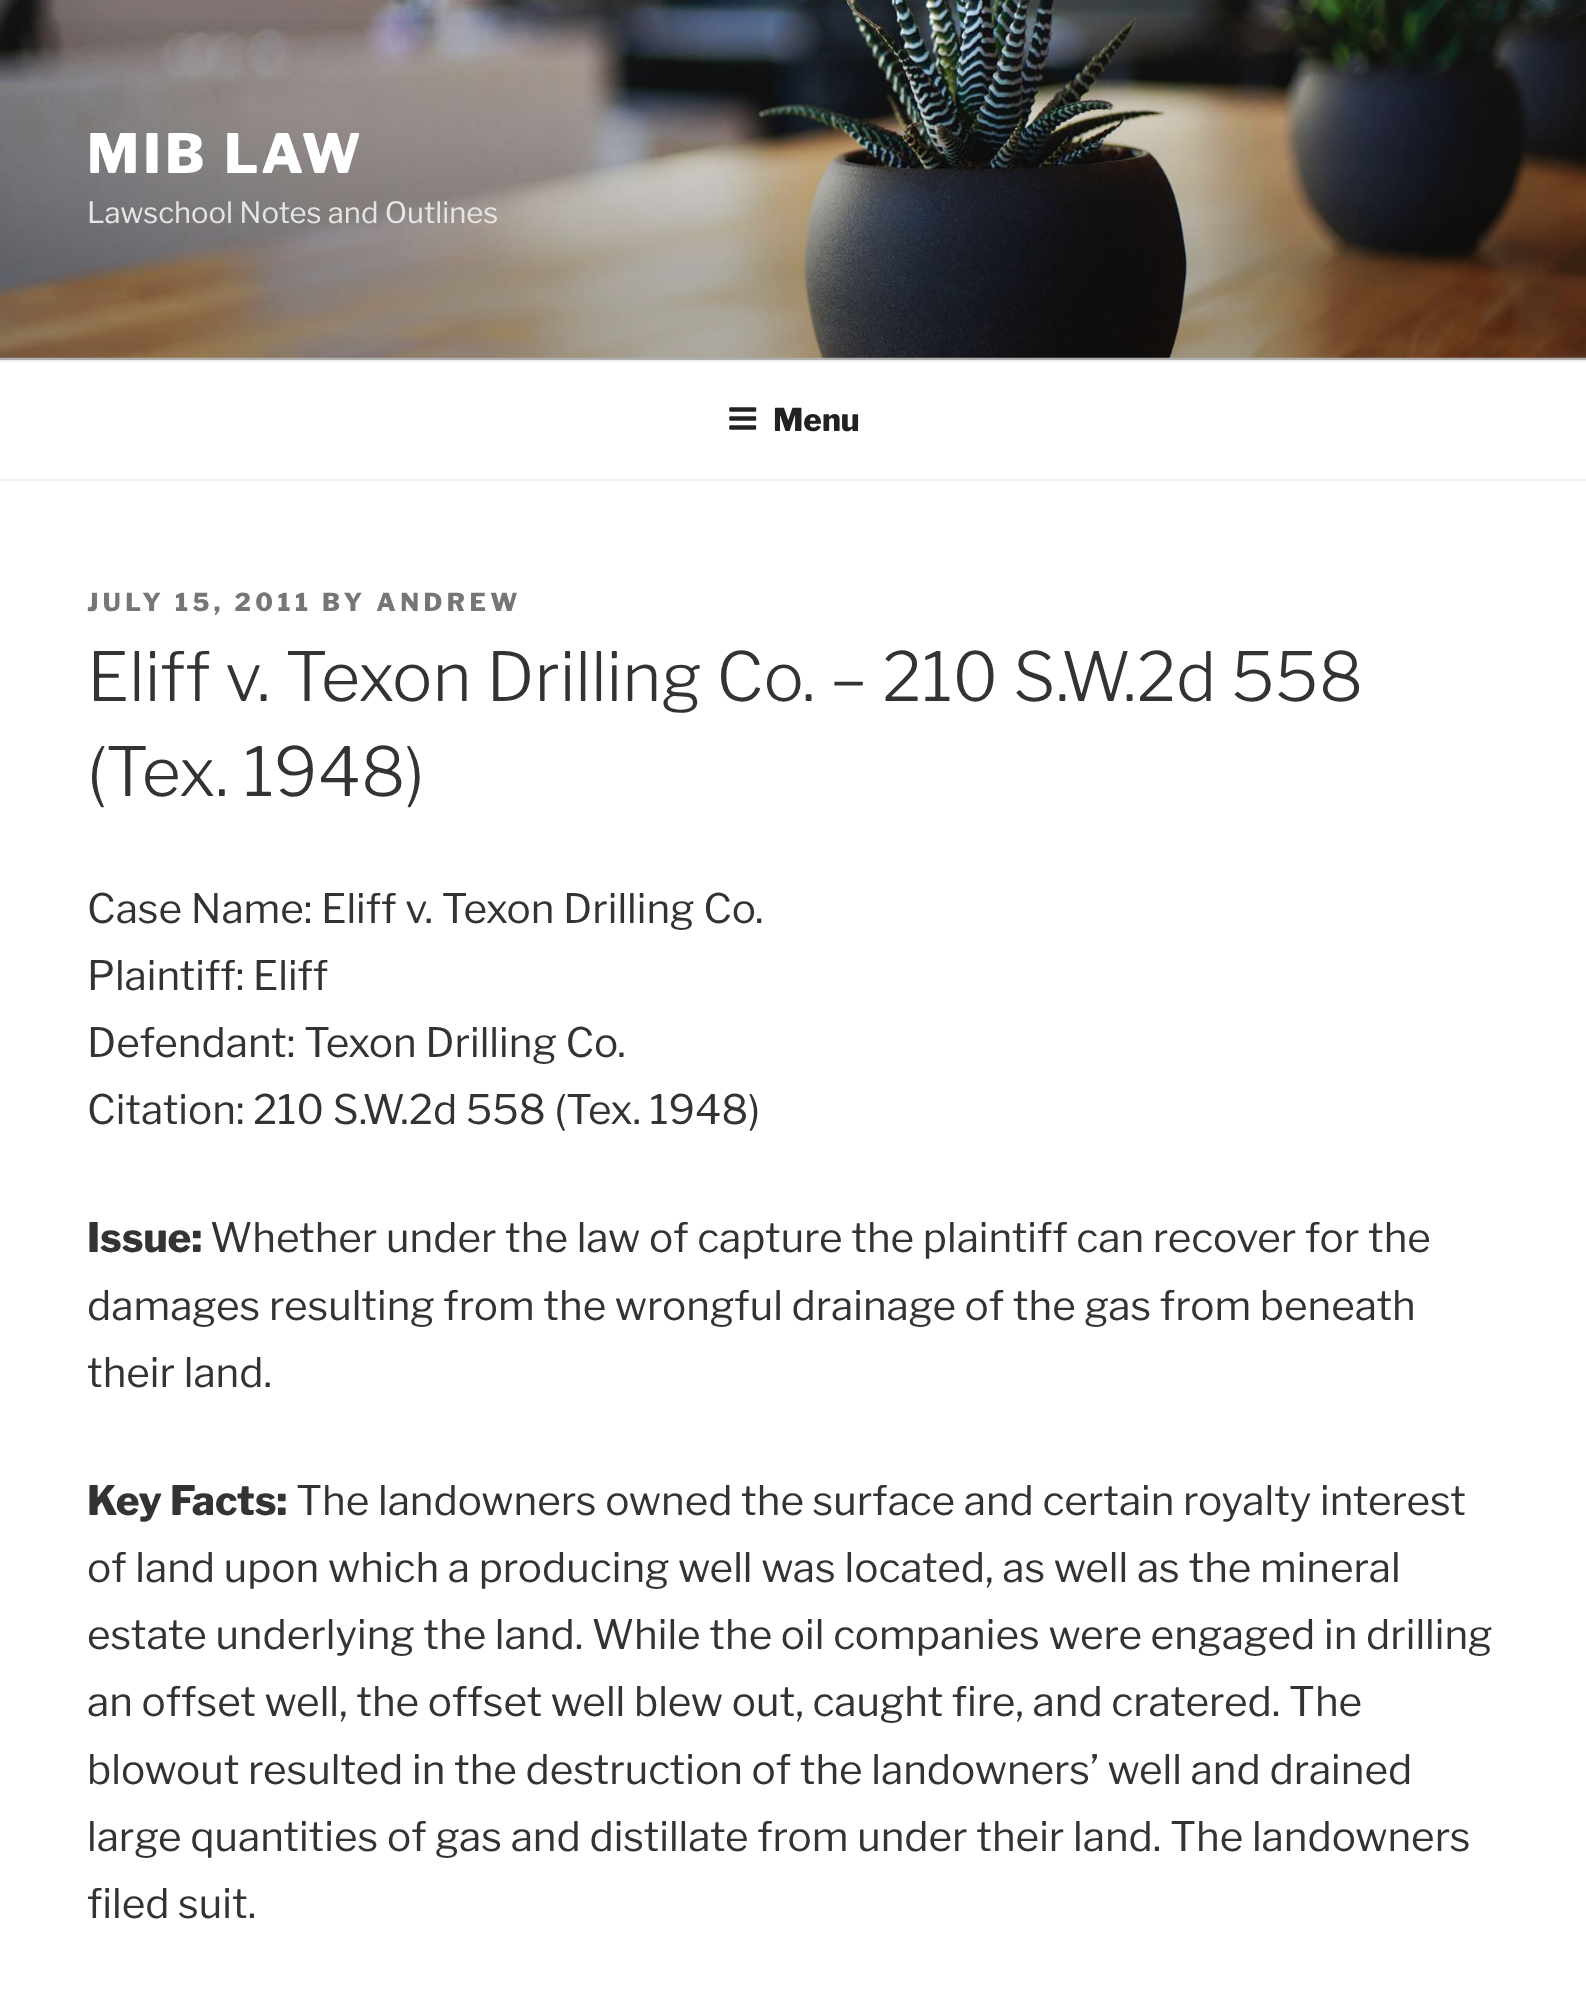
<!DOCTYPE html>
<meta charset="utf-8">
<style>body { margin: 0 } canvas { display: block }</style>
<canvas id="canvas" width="1586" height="2003"></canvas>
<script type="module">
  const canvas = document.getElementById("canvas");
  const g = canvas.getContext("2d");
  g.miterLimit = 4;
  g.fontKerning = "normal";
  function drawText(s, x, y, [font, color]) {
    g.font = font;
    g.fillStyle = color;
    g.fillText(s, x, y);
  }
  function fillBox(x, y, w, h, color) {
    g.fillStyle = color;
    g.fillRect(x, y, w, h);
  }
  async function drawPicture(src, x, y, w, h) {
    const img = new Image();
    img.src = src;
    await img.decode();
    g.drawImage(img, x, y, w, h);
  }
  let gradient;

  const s1 = ["800 54px Libre Franklin", "#FFFFFF"];
  const s2 = ["29.25px Libre Franklin", "#E6E5E5"];
  const s3 = ["800 31.5px Libre Franklin", "#222222"];
  const s4 = ["800 24.75px Libre Franklin", "#767676"];
  const s5 = ["300 67.5px Libre Franklin", "#333333"];
  const s6 = ["40.5px Libre Franklin", "#333333"];
  const s7 = ["800 40.5px Libre Franklin", "#333333"];

  fillBox(0, 0, 1586, 2003, "#FFFFFF");
  fillBox(0, 357, 1586, 3, "#FAFAFA");
  await drawPicture("pic1.png", 0, 0, 1586, 358);
  gradient = g.createLinearGradient(793, 0, 793, 360);
  gradient.addColorStop(0, "rgba(0, 0, 0, 0)");
  gradient.addColorStop(0.75, "rgba(0, 0, 0, 0.3)");
  gradient.addColorStop(1, "rgba(0, 0, 0, 0.3)");
  g.fillStyle = gradient;
  g.fillRect(0, 19, 1586, 341);
  g.letterSpacing = "4.25px";
  drawText("MIB LAW", 87, 173, s1);
  g.letterSpacing = "0px";
  drawText("Lawschool Notes and Outlines", 87, 223, s2);
  fillBox(0, 360, 1586, 2, "#EEEEEE");
  fillBox(0, 479, 1586, 2, "#EEEEEE");
  await drawPicture("pic2.png", 729, 407, 28, 23);
  drawText("Menu", 773, 431, s3);
  g.letterSpacing = "4.5px";
  drawText("JULY 15, 2011 BY ANDREW", 87, 611, s4);
  g.letterSpacing = "0px";
  drawText("Eliff v. Texon Drilling Co. – 210 S.W.2d 558", 87, 701, s5);
  drawText("(Tex. 1948)", 87, 796, s5);
  drawText("Case Name: Eliff v. Texon Drilling Co.", 87, 923, s6);
  drawText("Plaintiff: Eliff", 87, 990, s6);
  drawText("Defendant: Texon Drilling Co.", 87, 1057, s6);
  drawText("Citation: 210 S.W.2d 558 (Tex. 1948)", 87, 1124, s6);
  drawText("Issue:", 87, 1252, s7);
  drawText("Whether under the law of capture the plaintiff can recover for the", 210, 1252, s6);
  drawText("damages resulting from the wrongful drainage of the gas from beneath", 87, 1320, s6);
  drawText("their land.", 87, 1387, s6);
  drawText("Key Facts:", 87, 1515, s7);
  drawText("The landowners owned the surface and certain royalty interest", 296, 1515, s6);
  drawText("of land upon which a producing well was located, as well as the mineral", 87, 1582, s6);
  drawText("estate underlying the land. While the oil companies were engaged in drilling", 87, 1649, s6);
  drawText("an offset well, the offset well blew out, caught fire, and cratered. The", 87, 1716, s6);
  drawText("blowout resulted in the destruction of the landowners’ well and drained", 87, 1784, s6);
  drawText("large quantities of gas and distillate from under their land. The landowners", 87, 1851, s6);
  drawText("filed suit.", 87, 1918, s6);
</script>
